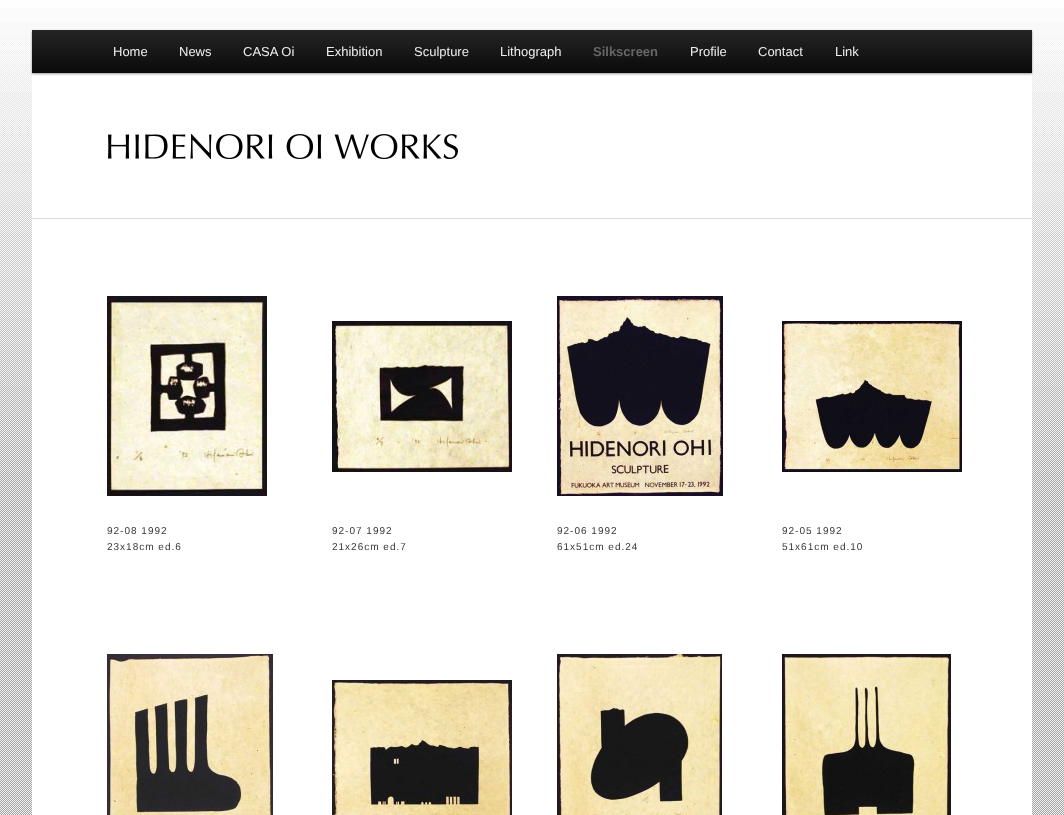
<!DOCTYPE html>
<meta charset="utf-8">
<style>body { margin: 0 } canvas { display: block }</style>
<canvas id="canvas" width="1064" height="815"></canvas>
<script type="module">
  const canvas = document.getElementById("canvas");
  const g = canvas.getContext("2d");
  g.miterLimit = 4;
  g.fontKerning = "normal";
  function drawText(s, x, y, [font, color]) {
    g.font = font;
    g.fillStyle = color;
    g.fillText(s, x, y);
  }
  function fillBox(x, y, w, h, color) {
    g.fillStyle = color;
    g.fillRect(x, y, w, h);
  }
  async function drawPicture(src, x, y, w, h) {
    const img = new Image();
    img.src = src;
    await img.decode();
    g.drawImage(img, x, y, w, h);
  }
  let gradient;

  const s1 = ["13px Liberation Sans", "#EEEEEE"];
  const s2 = ["bold 13px Liberation Sans", "#666666"];
  const s3 = ["10px Liberation Sans", "#373737"];

  fillBox(0, 0, 1064, 815, "#FFFFFF");
  await drawPicture("pic1.png", 0, 498, 1064, 317);
  await drawPicture("pic2.png", 0, 0, 1064, 498);
  fillBox(32, 73, 1000, 742, "#FFFFFF");
  g.fillStyle = "rgba(0, 0, 0, 0.4)";
  g.filter = "blur(1px)";
  g.beginPath();
  g.rect(32, 31, 1000, 43);
  g.fill();
  g.filter = "none";
  gradient = g.createLinearGradient(532, 30, 532, 73);
  gradient.addColorStop(0, "#252525");
  gradient.addColorStop(1, "#0A0A0A");
  g.fillStyle = gradient;
  g.fillRect(32, 30, 1000, 43);
  drawText("Home", 113, 56, s1);
  drawText("News", 179, 56, s1);
  drawText("CASA Oi", 243, 56, s1);
  drawText("Exhibition", 326, 56, s1);
  drawText("Sculpture", 414, 56, s1);
  drawText("Lithograph", 500, 56, s1);
  drawText("Silkscreen", 593, 56, s2);
  drawText("Profile", 690, 56, s1);
  drawText("Contact", 758, 56, s1);
  drawText("Link", 835, 56, s1);
  await drawPicture("pic3.png", 108, 134, 350, 25);
  fillBox(32, 218, 1000, 1, "#DDDDDD");
  await drawPicture("pic4.png", 107, 296, 160, 200);
  g.letterSpacing = "1px";
  drawText("92-08 1992", 107, 534, s3);
  drawText("23x18cm ed.6", 107, 550, s3);
  await drawPicture("pic5.png", 332, 321, 180, 151);
  drawText("92-07 1992", 332, 534, s3);
  drawText("21x26cm ed.7", 332, 550, s3);
  await drawPicture("pic6.png", 557, 296, 166, 200);
  drawText("92-06 1992", 557, 534, s3);
  drawText("61x51cm ed.24", 557, 550, s3);
  await drawPicture("pic7.png", 782, 321, 180, 151);
  drawText("92-05 1992", 782, 534, s3);
  drawText("51x61cm ed.10", 782, 550, s3);
  await drawPicture("pic8.png", 107, 654, 166, 161);
  await drawPicture("pic9.png", 332, 680, 180, 135);
  await drawPicture("pic10.png", 557, 654, 165, 161);
  await drawPicture("pic11.png", 782, 654, 169, 161);
</script>
